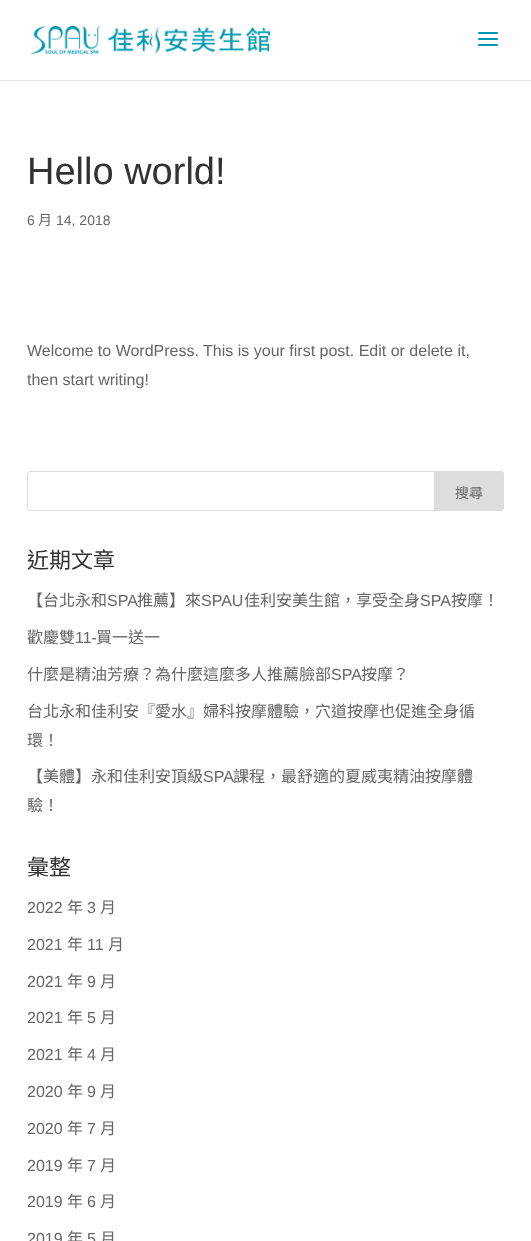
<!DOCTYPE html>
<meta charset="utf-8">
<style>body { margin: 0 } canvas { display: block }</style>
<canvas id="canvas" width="531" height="1241"></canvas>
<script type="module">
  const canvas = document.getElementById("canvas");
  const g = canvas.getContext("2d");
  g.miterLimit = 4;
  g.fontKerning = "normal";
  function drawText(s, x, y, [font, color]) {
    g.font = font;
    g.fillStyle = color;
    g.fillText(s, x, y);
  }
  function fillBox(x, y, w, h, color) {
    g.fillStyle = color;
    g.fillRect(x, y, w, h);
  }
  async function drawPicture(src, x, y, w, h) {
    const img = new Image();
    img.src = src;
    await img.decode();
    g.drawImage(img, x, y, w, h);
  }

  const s1 = ["38px Liberation Sans", "#333333"];
  const s2 = ["14px Liberation Sans", "#666666"];
  const s3 = ["14px Noto Sans CJK TC", "#666666"];
  const s4 = ["16px Liberation Sans", "#666666"];
  const s5 = ["22px Noto Sans CJK TC", "#333333"];
  const s6 = ["16px Noto Sans CJK TC", "#666666"];

  fillBox(0, 0, 531, 1241, "#FFFFFF");
  fillBox(0, 80, 531, 1, "#E6E6E6");
  await drawPicture("pic1.png", 31, 26, 239, 28);
  await drawPicture("pic2.png", 478, 32, 20, 14);
  drawText("Hello world!", 27, 184, s1);
  drawText("6", 27, 225, s2);
  drawText("月", 38, 225, s3);
  drawText("14, 2018", 56, 225, s2);
  drawText("Welcome to WordPress. This is your first post. Edit or delete it,", 27, 356, s4);
  drawText("then start writing!", 27, 385, s4);
  g.beginPath();
  g.roundRect(27.5, 471.5, 476, 39, 2.5);
  g.strokeStyle = "#DDDDDD";
  g.stroke();
  g.fillStyle = "#DDDDDD";
  g.beginPath();
  g.roundRect(434.5, 471.5, 69, 39, [0, 2.5, 2.5, 0]);
  g.fill();
  g.stroke();
  drawText("搜尋", 455, 498, s3);
  drawText("近期文章", 27, 568, s5);
  drawText("【台北永和", 27, 606, s6);
  drawText("SPA", 107, 606, s4);
  drawText("推薦】來", 137, 606, s6);
  drawText("SPAU", 201, 606, s4);
  drawText("佳利安美生館，享受全身", 244, 606, s6);
  drawText("SPA", 420, 606, s4);
  drawText("按摩！", 451, 606, s6);
  drawText("歡慶雙", 27, 643, s6);
  drawText("11-", 75, 643, s4);
  drawText("買一送一", 96, 643, s6);
  drawText("什麼是精油芳療？為什麼這麼多人推薦臉部", 27, 680, s6);
  drawText("SPA", 331, 680, s4);
  drawText("按摩？", 361, 680, s6);
  drawText("台北永和佳利安『愛水』婦科按摩體驗，穴道按摩也促進全身循", 27, 717, s6);
  drawText("環！", 27, 746, s6);
  drawText("【美體】永和佳利安頂級", 27, 782, s6);
  drawText("SPA", 203, 782, s4);
  drawText("課程，最舒適的夏威夷精油按摩體", 233, 782, s6);
  drawText("驗！", 27, 811, s6);
  drawText("彙整", 27, 875, s5);
  drawText("2022", 27, 913, s4);
  drawText("年", 67, 913, s6);
  drawText("3", 87, 913, s4);
  drawText("月", 100, 913, s6);
  drawText("2021", 27, 950, s4);
  drawText("年", 67, 950, s6);
  drawText("11", 87, 950, s4);
  drawText("月", 108, 950, s6);
  drawText("2021", 27, 987, s4);
  drawText("年", 67, 987, s6);
  drawText("9", 87, 987, s4);
  drawText("月", 100, 987, s6);
  drawText("2021", 27, 1023, s4);
  drawText("年", 67, 1023, s6);
  drawText("5", 87, 1023, s4);
  drawText("月", 100, 1023, s6);
  drawText("2021", 27, 1060, s4);
  drawText("年", 67, 1060, s6);
  drawText("4", 87, 1060, s4);
  drawText("月", 100, 1060, s6);
  drawText("2020", 27, 1097, s4);
  drawText("年", 67, 1097, s6);
  drawText("9", 87, 1097, s4);
  drawText("月", 100, 1097, s6);
  drawText("2020", 27, 1134, s4);
  drawText("年", 67, 1134, s6);
  drawText("7", 87, 1134, s4);
  drawText("月", 100, 1134, s6);
  drawText("2019", 27, 1171, s4);
  drawText("年", 67, 1171, s6);
  drawText("7", 87, 1171, s4);
  drawText("月", 100, 1171, s6);
  drawText("2019", 27, 1207, s4);
  drawText("年", 67, 1207, s6);
  drawText("6", 87, 1207, s4);
  drawText("月", 100, 1207, s6);
  drawText("2019", 27, 1244, s4);
  drawText("年", 67, 1244, s6);
  drawText("5", 87, 1244, s4);
  drawText("月", 100, 1244, s6);
</script>
